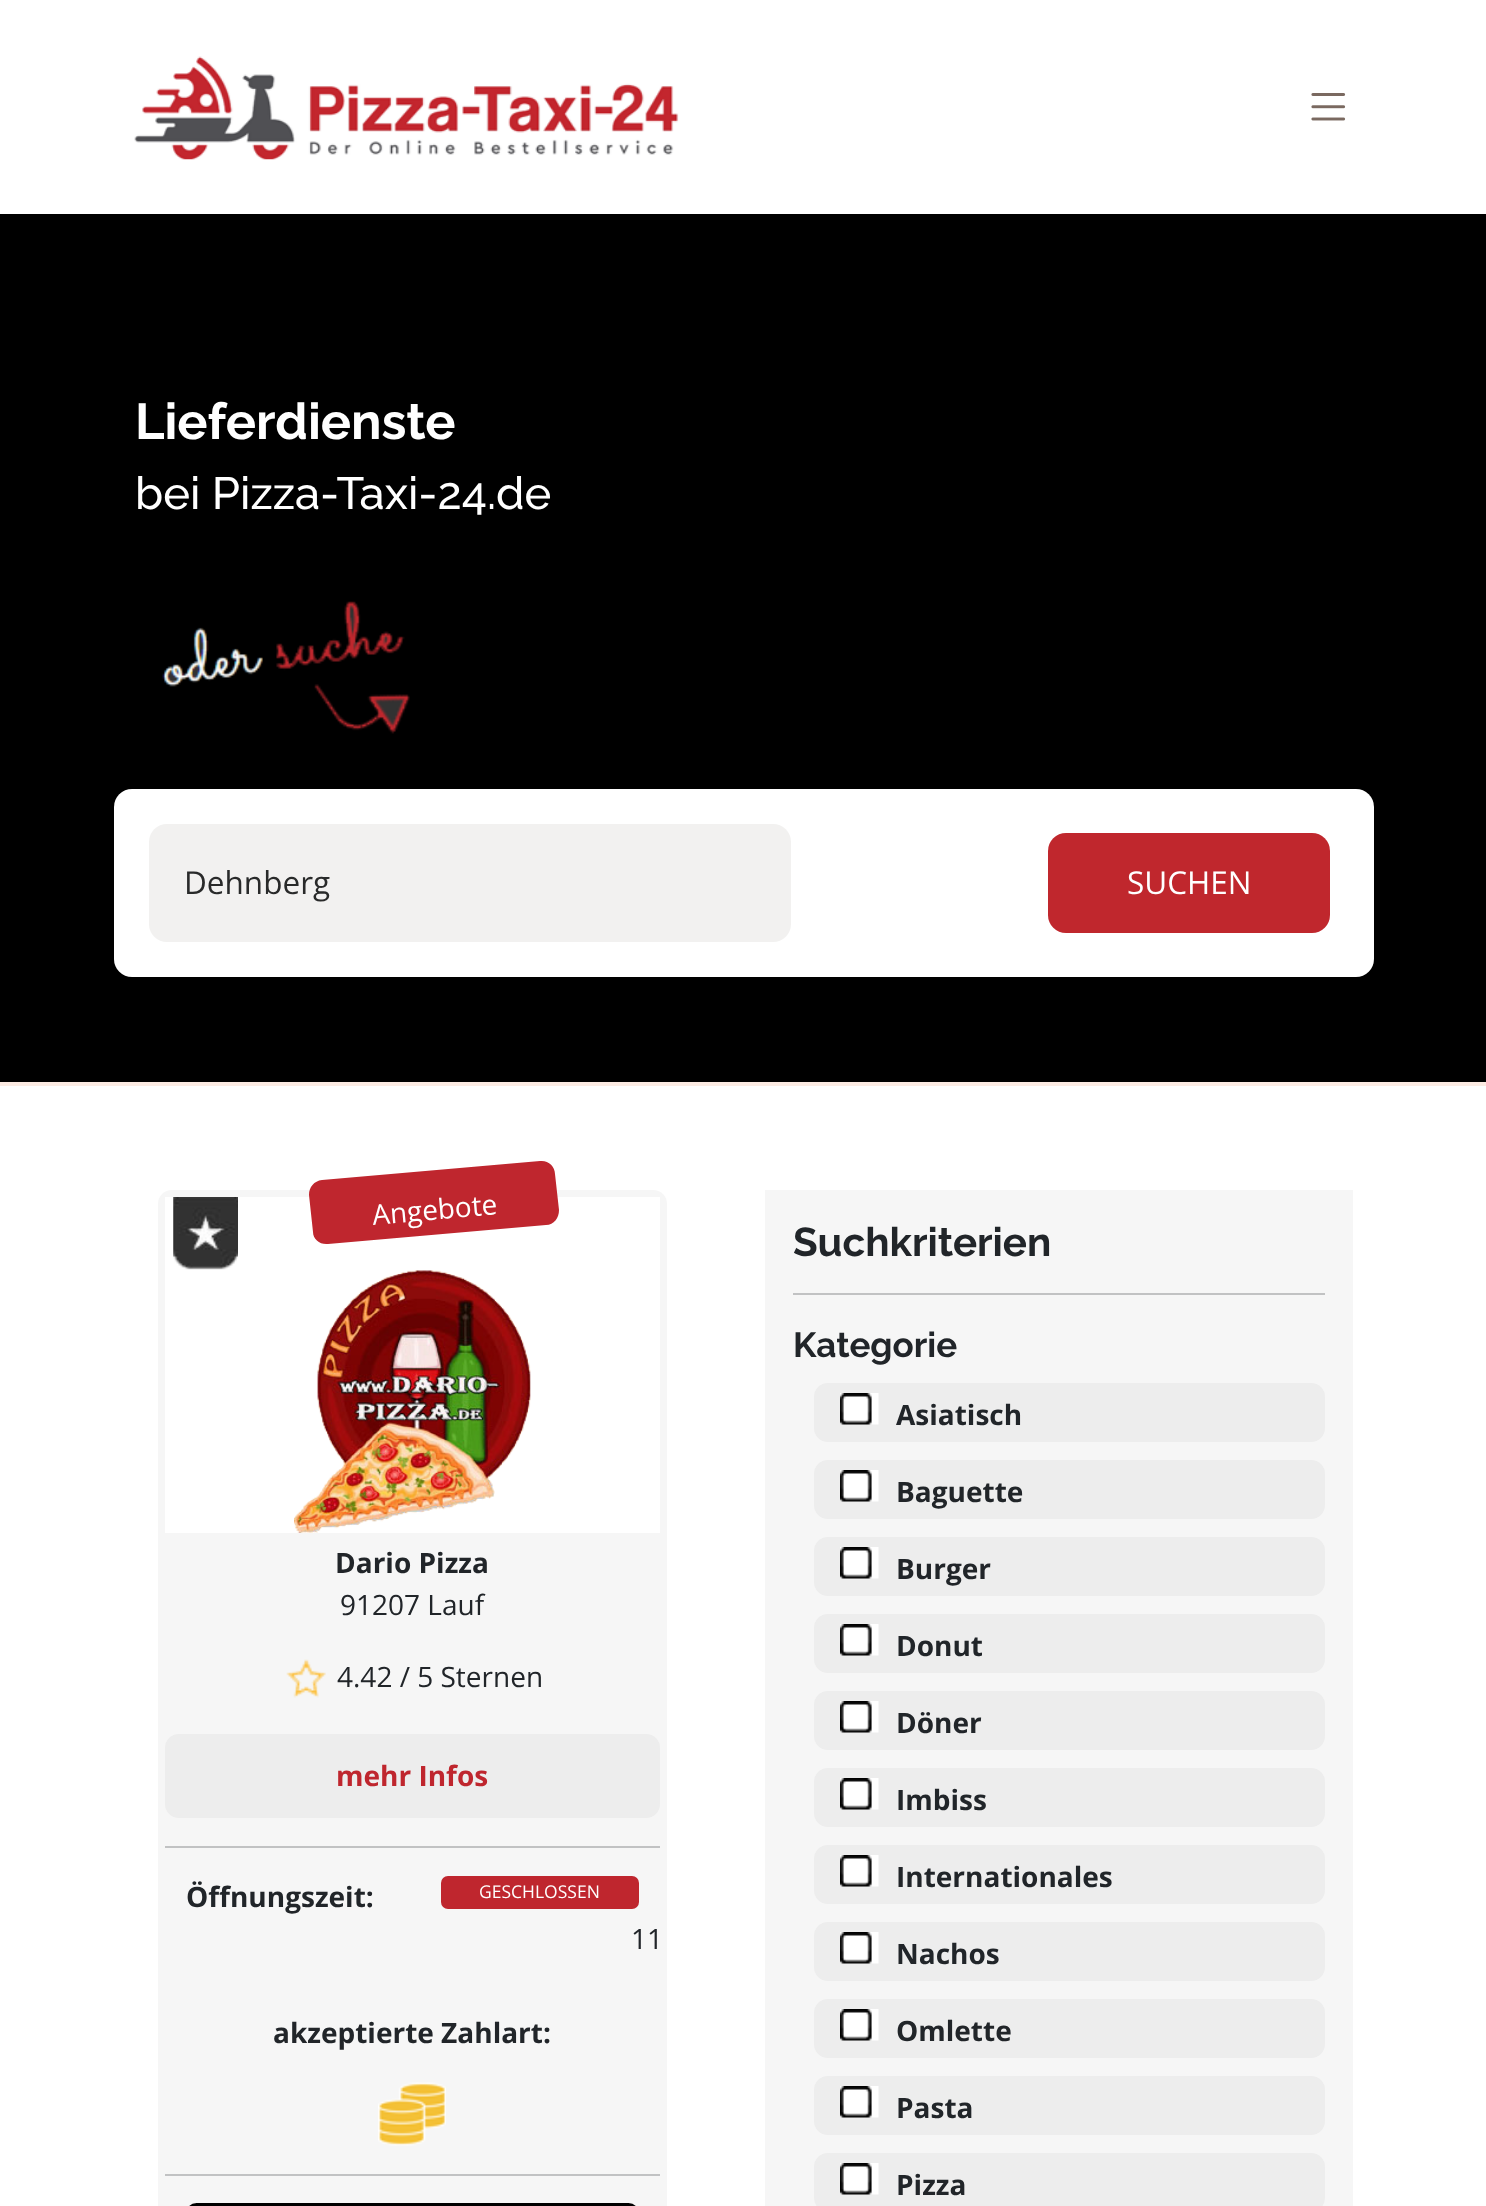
<!DOCTYPE html>
<meta charset="utf-8">
<style>body { margin: 0 } canvas { display: block }</style>
<canvas id="canvas" width="1486" height="2206"></canvas>
<script type="module">
  const canvas = document.getElementById("canvas");
  const g = canvas.getContext("2d");
  g.miterLimit = 4;
  g.fontKerning = "normal";
  function drawText(s, x, y, [font, color]) {
    g.font = font;
    g.fillStyle = color;
    g.fillText(s, x, y);
  }
  function fillBox(x, y, w, h, color) {
    g.fillStyle = color;
    g.fillRect(x, y, w, h);
  }
  function fillRounded(x, y, w, h, r, color) {
    g.fillStyle = color;
    g.beginPath();
    g.roundRect(x, y, w, h, r);
    g.fill();
  }
  async function drawPicture(src, x, y, w, h) {
    const img = new Image();
    img.src = src;
    await img.decode();
    g.drawImage(img, x, y, w, h);
  }

  const s1 = ["bold 50.5px Raleway", "#FFFFFF"];
  const s2 = ["500 45.25px Raleway", "#FFFFFF"];
  const s3 = ["31.5px Open Sans", "#292A2A"];
  const s4 = ["31.5px Open Sans", "#FFFFFF"];
  const s5 = ["bold 28px Open Sans", "#212529"];
  const s6 = ["28px Open Sans", "#212529"];
  const s7 = ["bold 28px Open Sans", "#BF262E"];
  const s8 = ["17.5px Open Sans", "#FFFFFF"];
  const s9 = ["bold 40.25px Raleway", "#212529"];
  const s10 = ["bold 35px Raleway", "#212529"];

  fillBox(0, 0, 1486, 2206, "#FFFFFF");
  await drawPicture("pic1.png", 134, 56, 545, 104);
  await drawPicture("pic2.png", 1311, 93, 35, 28);
  fillBox(0, 214, 1486, 868, "#000000");
  fillBox(0, 1082, 1486, 4, "#FCEBE3");
  drawText("Lieferdienste", 135, 439, s1);
  drawText("bei Pizza-Taxi-24.de", 135, 509, s2);
  await drawPicture("pic3.png", 162, 601, 248, 133);
  fillRounded(114, 789, 1260, 188, 18, "#FFFFFF");
  fillRounded(149, 824, 642, 118, 18, "#F2F1F0");
  drawText("Dehnberg", 184, 894, s3);
  fillRounded(1048, 833, 282, 100, 18, "#C0272D");
  drawText("SUCHEN", 1127, 894, s4);
  fillRounded(158, 1190, 509, 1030, 14, "#F6F6F6");
  fillBox(165, 1197, 495, 336, "#FFFFFF");
  await drawPicture("pic4.png", 173, 1197, 65, 73);
  g.fillStyle = "#BF262E";
  g.beginPath();
  g.moveTo(322, 1180);
  g.lineTo(540, 1161);
  g.bezierCurveTo(548, 1160, 555, 1166, 555, 1174);
  g.lineTo(559, 1210);
  g.bezierCurveTo(559, 1218, 554, 1225, 546, 1225);
  g.lineTo(328, 1244);
  g.bezierCurveTo(320, 1245, 313, 1239, 313, 1232);
  g.lineTo(309, 1195);
  g.bezierCurveTo(309, 1187, 314, 1181, 322, 1180);
  g.closePath();
  g.fill();
  g.font = "28px Open Sans";
  g.fillStyle = "#FFFFFF";
  g.save();
  g.translate(373, 1225);
  g.rotate(-5 * Math.PI / 180);
  g.fillText("Angebote", 0, 0);
  g.restore();
  await drawPicture("pic5.png", 294, 1270, 237, 263);
  drawText("Dario Pizza", 335, 1573, s5);
  drawText("91207 Lauf", 340, 1615, s6);
  await drawPicture("pic6.png", 286, 1659, 40, 39);
  drawText("4.42 / 5 Sternen", 337, 1687, s6);
  fillRounded(165, 1734, 495, 84, 14, "#EDEDED");
  drawText("mehr Infos", 336, 1786, s7);
  fillBox(165, 1846, 495, 2, "#C1C2C3");
  drawText("Öffnungszeit:", 186, 1907, s5);
  fillRounded(441, 1876, 198, 33, 7, "#BF262E");
  drawText("GESCHLOSSEN", 479, 1898, s8);
  drawText("11", 631, 1949, s6);
  drawText("akzeptierte Zahlart:", 273, 2043, s5);
  await drawPicture("pic7.png", 378, 2082, 68, 64);
  fillBox(165, 2174, 495, 2, "#C1C2C3");
  g.beginPath();
  g.roundRect(188, 2205, 449, 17, 12);
  g.strokeStyle = "#000000";
  g.lineWidth = 4;
  g.stroke();
  fillBox(765, 1190, 588, 1016, "#F6F6F6");
  drawText("Suchkriterien", 793, 1256, s9);
  fillBox(793, 1293, 532, 2, "#C1C2C3");
  drawText("Kategorie", 793, 1357, s10);
  fillRounded(814, 1383, 511, 59, 14, "#EDEDED");
  await drawPicture("pic8.png", 840, 1393, 39, 32);
  drawText("Asiatisch", 896, 1425, s5);
  fillRounded(814, 1460, 511, 59, 14, "#EDEDED");
  await drawPicture("pic8.png", 840, 1470, 39, 32);
  drawText("Baguette", 896, 1502, s5);
  fillRounded(814, 1537, 511, 59, 14, "#EDEDED");
  await drawPicture("pic8.png", 840, 1547, 39, 32);
  drawText("Burger", 896, 1579, s5);
  fillRounded(814, 1614, 511, 59, 14, "#EDEDED");
  await drawPicture("pic8.png", 840, 1624, 39, 32);
  drawText("Donut", 896, 1656, s5);
  fillRounded(814, 1691, 511, 59, 14, "#EDEDED");
  await drawPicture("pic8.png", 840, 1701, 39, 32);
  drawText("Döner", 896, 1733, s5);
  fillRounded(814, 1768, 511, 59, 14, "#EDEDED");
  await drawPicture("pic8.png", 840, 1778, 39, 32);
  drawText("Imbiss", 896, 1810, s5);
  fillRounded(814, 1845, 511, 59, 14, "#EDEDED");
  await drawPicture("pic8.png", 840, 1855, 39, 32);
  drawText("Internationales", 896, 1887, s5);
  fillRounded(814, 1922, 511, 59, 14, "#EDEDED");
  await drawPicture("pic8.png", 840, 1932, 39, 32);
  drawText("Nachos", 896, 1964, s5);
  fillRounded(814, 1999, 511, 59, 14, "#EDEDED");
  await drawPicture("pic8.png", 840, 2009, 39, 32);
  drawText("Omlette", 896, 2041, s5);
  fillRounded(814, 2076, 511, 59, 14, "#EDEDED");
  await drawPicture("pic8.png", 840, 2086, 39, 32);
  drawText("Pasta", 896, 2118, s5);
  fillRounded(814, 2153, 511, 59, 14, "#EDEDED");
  await drawPicture("pic8.png", 840, 2163, 39, 32);
  drawText("Pizza", 896, 2195, s5);
</script>
